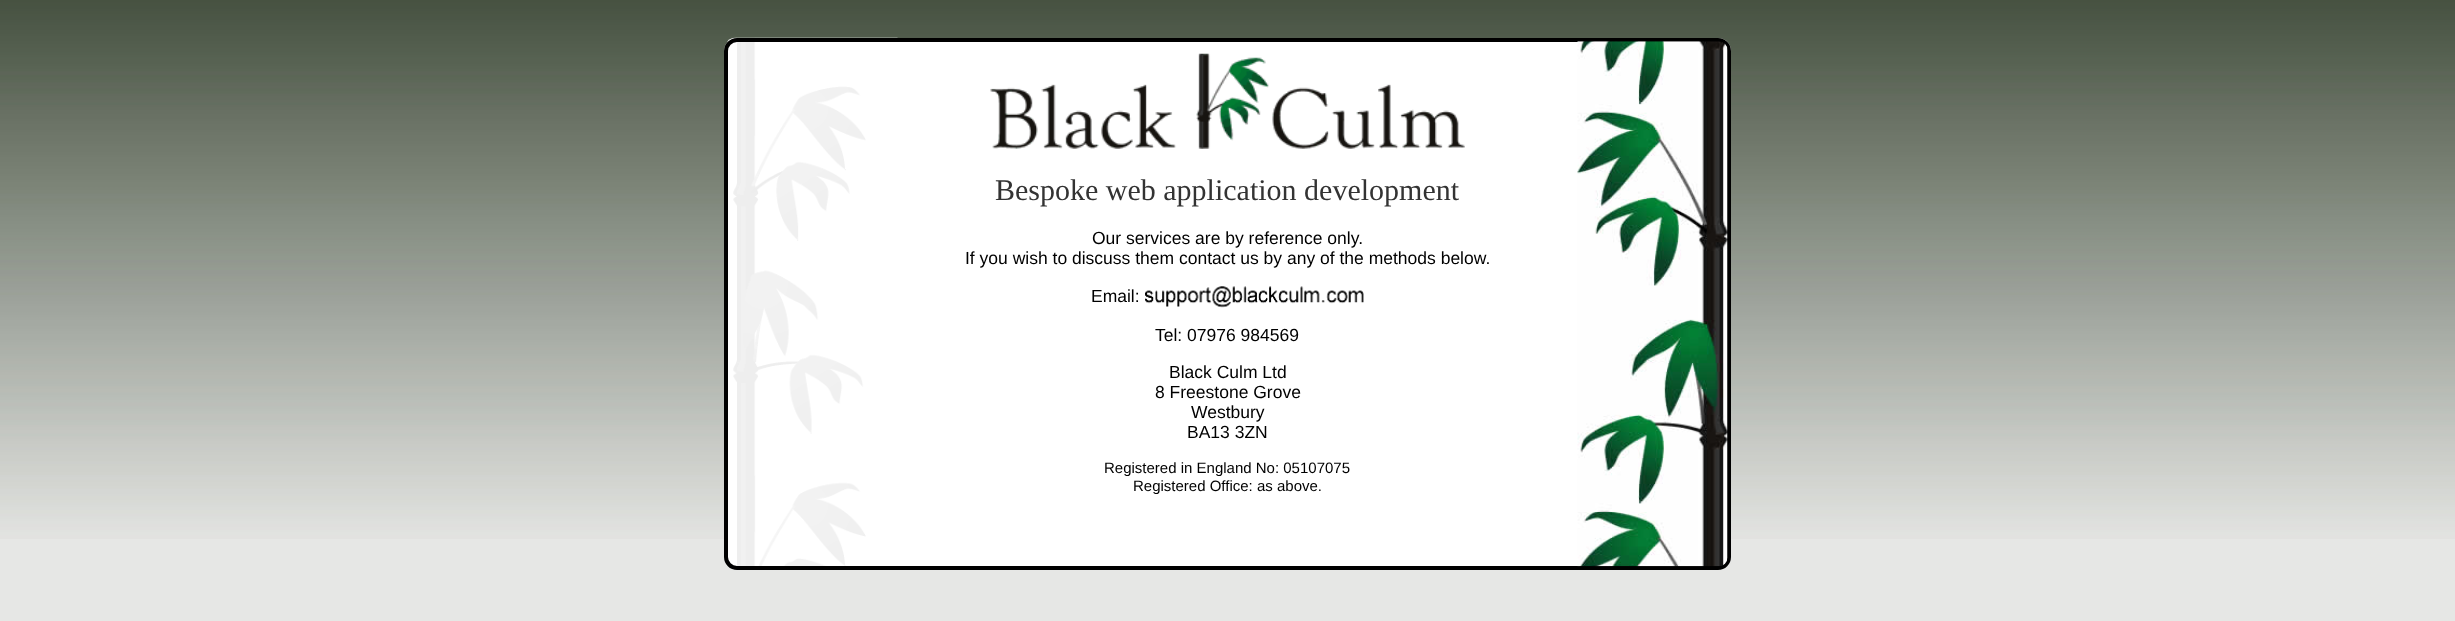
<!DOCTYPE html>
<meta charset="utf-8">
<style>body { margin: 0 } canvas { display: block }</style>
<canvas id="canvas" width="2455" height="621"></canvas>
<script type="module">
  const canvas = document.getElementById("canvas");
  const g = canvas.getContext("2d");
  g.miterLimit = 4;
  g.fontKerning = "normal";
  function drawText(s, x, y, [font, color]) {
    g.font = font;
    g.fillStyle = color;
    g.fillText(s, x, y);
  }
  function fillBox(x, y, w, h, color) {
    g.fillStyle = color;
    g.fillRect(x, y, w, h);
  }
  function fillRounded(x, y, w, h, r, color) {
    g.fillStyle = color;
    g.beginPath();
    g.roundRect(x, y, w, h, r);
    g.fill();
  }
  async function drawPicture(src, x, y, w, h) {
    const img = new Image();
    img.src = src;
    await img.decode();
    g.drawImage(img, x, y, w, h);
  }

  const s1 = ["30px Liberation Serif", "#333333"];
  const s2 = ["17.5px Liberation Sans", "#000000"];
  const s3 = ["15px Liberation Sans", "#000000"];

  fillBox(0, 0, 2455, 621, "#E6E7E5");
  await drawPicture("pic1.png", 0, 0, 2455, 539);
  fillRounded(724, 38, 1007, 532, 13, "#FFFFFF");
  await drawPicture("pic2.png", 727, 37, 171, 533);
  g.beginPath();
  g.roundRect(726, 40, 1003, 528, 11);
  g.strokeStyle = "#000000";
  g.lineWidth = 4;
  g.stroke();
  await drawPicture("pic3.png", 1577, 41, 151, 526);
  await drawPicture("pic4.png", 990, 53, 475, 96);
  drawText("Bespoke web application development", 995, 200, s1);
  drawText("Our services are by reference only.", 1092, 244, s2);
  drawText("If you wish to discuss them contact us by any of the methods below.", 965, 264, s2);
  drawText("Email:", 1091, 302, s2);
  await drawPicture("pic5.png", 1145, 286, 219, 22);
  drawText("Tel: 07976 984569", 1155, 341, s2);
  drawText("Black Culm Ltd", 1169, 378, s2);
  drawText("8 Freestone Grove", 1155, 398, s2);
  drawText("Westbury", 1191, 418, s2);
  drawText("BA13 3ZN", 1187, 438, s2);
  drawText("Registered in England No: 05107075", 1104, 473, s3);
  drawText("Registered Office: as above.", 1133, 491, s3);
</script>
